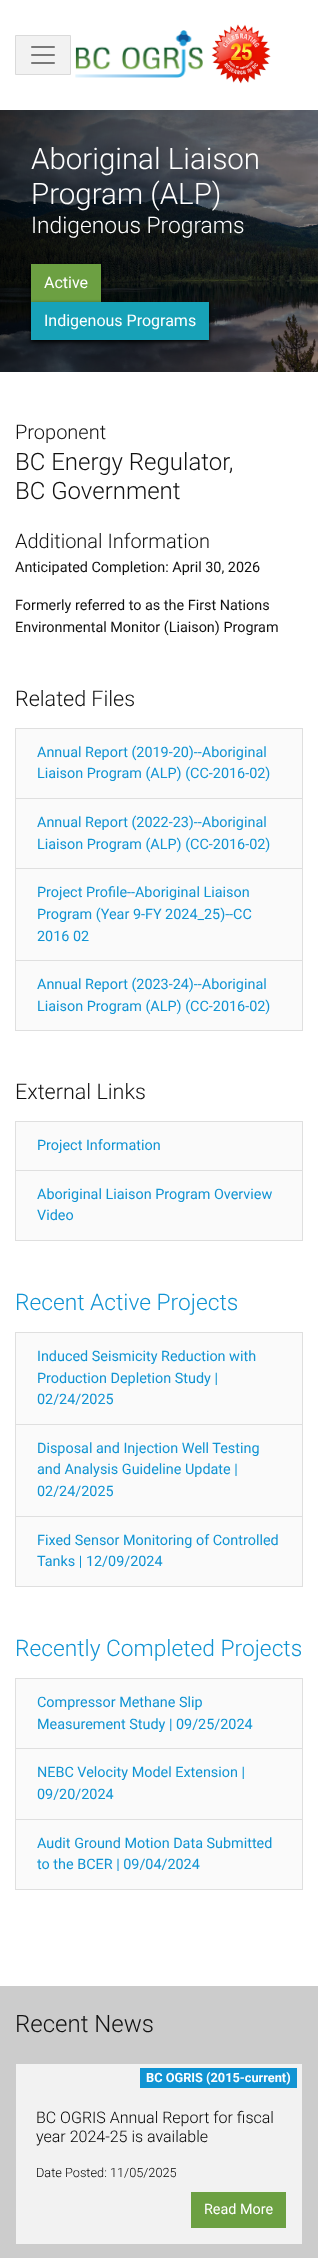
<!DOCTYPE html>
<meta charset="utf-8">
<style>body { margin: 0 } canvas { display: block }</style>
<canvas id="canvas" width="318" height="2258"></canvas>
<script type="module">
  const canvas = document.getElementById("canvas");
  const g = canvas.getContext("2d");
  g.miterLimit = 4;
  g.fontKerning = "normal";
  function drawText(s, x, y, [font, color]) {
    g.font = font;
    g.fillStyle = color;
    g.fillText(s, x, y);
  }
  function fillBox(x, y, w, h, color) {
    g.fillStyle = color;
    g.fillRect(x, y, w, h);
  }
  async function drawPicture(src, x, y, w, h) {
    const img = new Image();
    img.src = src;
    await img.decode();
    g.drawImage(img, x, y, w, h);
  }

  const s1 = ["300 29.5px Roboto", "#FFFFFF"];
  const s2 = ["300 22.75px Roboto", "#FFFFFF"];
  const s3 = ["16px Roboto", "#FFFFFF"];
  const s4 = ["300 20px Roboto", "#111111"];
  const s5 = ["300 24px Roboto", "#111111"];
  const s6 = ["14.4px Roboto", "#111111"];
  const s7 = ["300 21.5px Roboto", "#111111"];
  const s8 = ["14.4px Roboto", "#1194D3"];
  const s9 = ["300 22.75px Roboto", "#1194D3"];
  const s10 = ["bold 12.75px Roboto", "#FFFFFF"];
  const s11 = ["300 16px Roboto", "#000000"];
  const s12 = ["300 12.75px Roboto", "#000000"];
  const s13 = ["14.4px Roboto", "#FFFFFF"];

  fillBox(0, 0, 318, 2258, "#FFFFFF");
  g.fillStyle = "#F2F2F2";
  g.beginPath();
  g.rect(15.5, 35.5, 55, 39);
  g.fill();
  g.strokeStyle = "#DADADA";
  g.stroke();
  await drawPicture("pic1.png", 31, 46, 24, 18);
  await drawPicture("pic2.png", 75, 30, 128, 48);
  await drawPicture("pic3.png", 211, 24, 60, 60);
  await drawPicture("pic4.png", 0, 110, 318, 262);
  drawText("Aboriginal Liaison", 31, 169, s1);
  drawText("Program (ALP)", 31, 204, s1);
  drawText("Indigenous Programs", 31, 233, s2);
  g.fillStyle = "#000000";
  g.filter = "blur(2px)";
  g.beginPath();
  g.rect(31, 266, 70, 38);
  g.fill();
  g.filter = "none";
  fillBox(31, 264, 70, 38, "#6CA042");
  drawText("Active", 44, 288, s3);
  g.fillStyle = "#000000";
  g.filter = "blur(2px)";
  g.beginPath();
  g.rect(31, 304, 178, 38);
  g.fill();
  g.filter = "none";
  fillBox(31, 302, 178, 38, "#17A2B8");
  drawText("Indigenous Programs", 44, 326, s3);
  drawText("Proponent", 15, 439, s4);
  drawText("BC Energy Regulator,", 15, 470, s5);
  drawText("BC Government", 15, 499, s5);
  drawText("Additional Information", 15, 548, s4);
  drawText("Anticipated Completion: April 30, 2026", 15, 572, s6);
  drawText("Formerly referred to as the First Nations", 15, 610, s6);
  drawText("Environmental Monitor (Liaison) Program", 15, 632, s6);
  drawText("Related Files", 15, 706, s7);
  g.strokeStyle = "#DFDFDF";
  g.strokeRect(15.5, 728.5, 287, 70);
  fillBox(16, 729, 286, 69, "#FAFAFA");
  drawText("Annual Report (2019-20)--Aboriginal", 37, 757, s8);
  drawText("Liaison Program (ALP) (CC-2016-02)", 37, 778, s8);
  g.strokeRect(15.5, 798.5, 287, 70);
  fillBox(16, 799, 286, 69, "#FAFAFA");
  drawText("Annual Report (2022-23)--Aboriginal", 37, 827, s8);
  drawText("Liaison Program (ALP) (CC-2016-02)", 37, 849, s8);
  g.strokeRect(15.5, 868.5, 287, 92);
  fillBox(16, 869, 286, 91, "#FAFAFA");
  drawText("Project Profile--Aboriginal Liaison", 37, 897, s8);
  drawText("Program (Year 9-FY 2024_25)--CC", 37, 919, s8);
  drawText("2016 02", 37, 941, s8);
  g.strokeRect(15.5, 960.5, 287, 70);
  fillBox(16, 961, 286, 69, "#FAFAFA");
  drawText("Annual Report (2023-24)--Aboriginal", 37, 989, s8);
  drawText("Liaison Program (ALP) (CC-2016-02)", 37, 1011, s8);
  drawText("External Links", 15, 1099, s7);
  g.strokeRect(15.5, 1121.5, 287, 49);
  fillBox(16, 1122, 286, 48, "#FAFAFA");
  drawText("Project Information", 37, 1150, s8);
  g.strokeRect(15.5, 1170.5, 287, 70);
  fillBox(16, 1171, 286, 69, "#FAFAFA");
  drawText("Aboriginal Liaison Program Overview", 37, 1199, s8);
  drawText("Video", 37, 1220, s8);
  drawText("Recent Active Projects", 15, 1310, s9);
  g.strokeRect(15.5, 1332.5, 287, 92);
  fillBox(16, 1333, 286, 91, "#FAFAFA");
  drawText("Induced Seismicity Reduction with", 37, 1361, s8);
  drawText("Production Depletion Study |", 37, 1383, s8);
  drawText("02/24/2025", 37, 1404, s8);
  g.strokeRect(15.5, 1424.5, 287, 92);
  fillBox(16, 1425, 286, 91, "#FAFAFA");
  drawText("Disposal and Injection Well Testing", 37, 1453, s8);
  drawText("and Analysis Guideline Update |", 37, 1474, s8);
  drawText("02/24/2025", 37, 1496, s8);
  g.strokeRect(15.5, 1516.5, 287, 70);
  fillBox(16, 1517, 286, 69, "#FAFAFA");
  drawText("Fixed Sensor Monitoring of Controlled", 37, 1545, s8);
  drawText("Tanks | 12/09/2024", 37, 1566, s8);
  drawText("Recently Completed Projects", 15, 1656, s9);
  g.strokeRect(15.5, 1678.5, 287, 70);
  fillBox(16, 1679, 286, 69, "#FAFAFA");
  drawText("Compressor Methane Slip", 37, 1707, s8);
  drawText("Measurement Study | 09/25/2024", 37, 1729, s8);
  g.strokeRect(15.5, 1748.5, 287, 71);
  fillBox(16, 1749, 286, 70, "#FAFAFA");
  drawText("NEBC Velocity Model Extension |", 37, 1777, s8);
  drawText("09/20/2024", 37, 1799, s8);
  g.strokeRect(15.5, 1819.5, 287, 70);
  fillBox(16, 1820, 286, 69, "#FAFAFA");
  drawText("Audit Ground Motion Data Submitted", 37, 1848, s8);
  drawText("to the BCER | 09/04/2024", 37, 1869, s8);
  fillBox(0, 1986, 318, 272, "#CCCCCC");
  drawText("Recent News", 15, 2032, s5);
  fillBox(16, 2064, 286, 180, "#F2F2F2");
  fillBox(140, 2068, 157, 20, "#1194D3");
  drawText("BC OGRIS (2015-current)", 146, 2082, s10);
  drawText("BC OGRIS Annual Report for fiscal", 36, 2123, s11);
  drawText("year 2024-25 is available", 36, 2142, s11);
  drawText("Date Posted: 11/05/2025", 36, 2177, s12);
  fillBox(191, 2192, 95, 36, "#6CA042");
  drawText("Read More", 204, 2214, s13);
</script>
